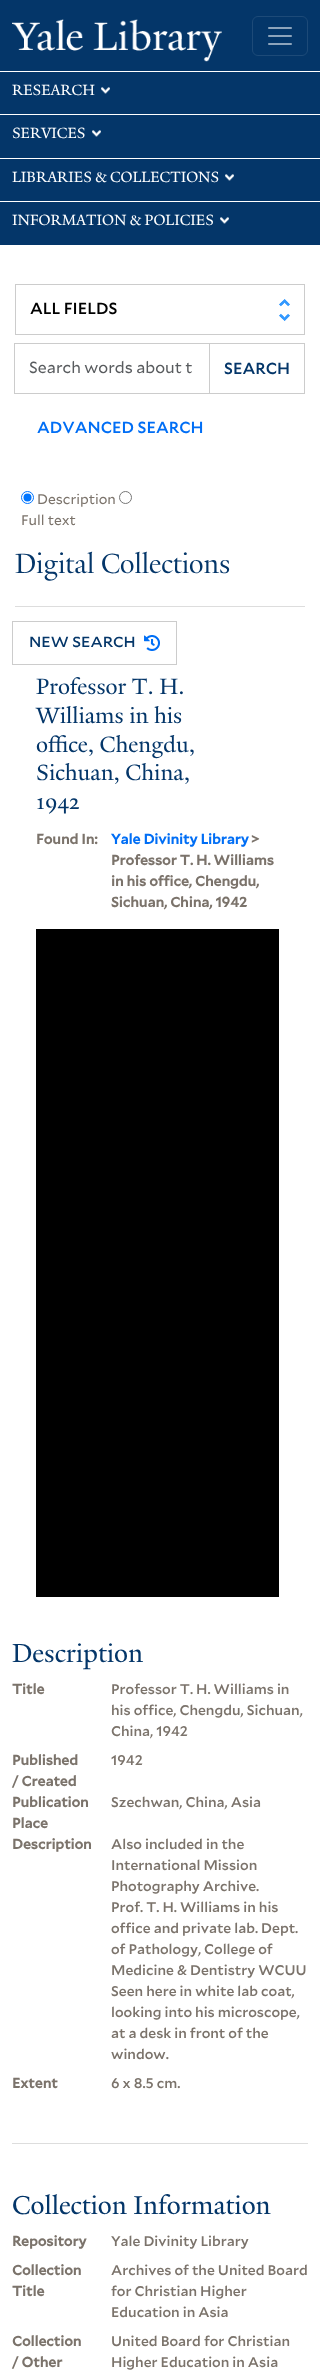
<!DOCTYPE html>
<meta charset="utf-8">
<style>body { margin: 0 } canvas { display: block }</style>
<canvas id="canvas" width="320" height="2376"></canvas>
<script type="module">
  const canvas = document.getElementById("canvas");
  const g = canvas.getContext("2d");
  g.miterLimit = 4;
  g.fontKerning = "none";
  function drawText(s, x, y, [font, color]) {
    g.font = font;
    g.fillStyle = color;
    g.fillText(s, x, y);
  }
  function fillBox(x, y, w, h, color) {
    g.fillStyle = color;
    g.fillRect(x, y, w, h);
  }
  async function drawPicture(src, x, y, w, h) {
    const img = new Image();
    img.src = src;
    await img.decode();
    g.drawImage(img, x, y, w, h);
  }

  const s1 = ["16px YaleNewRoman", "#FFFFFF"];
  const s2 = ["500 16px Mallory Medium", "#000000"];
  const s3 = ["16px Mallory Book", "#595C5F"];
  const s4 = ["500 16px Mallory Medium", "#043669"];
  const s5 = ["500 16px Mallory Medium", "#006EF5"];
  const s6 = ["14px Mallory Book", "#7B736B"];
  const s7 = ["30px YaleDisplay", "#043669"];
  const s8 = ["500 14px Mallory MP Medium", "#043669"];
  const s9 = ["24px YaleNewRoman", "#043669"];
  const s10 = ["bold 14px Mallory Medium", "#7B736B"];
  const s11 = ["bold 14px Mallory Medium", "#006EF5"];
  const s12 = ["28px YaleNewRoman", "#043669"];
  const s13 = ["500 14px Mallory Medium", "#7B736B"];

  fillBox(0, 0, 320, 2376, "#FFFFFF");
  fillBox(0, 0, 320, 71, "#043669");
  await drawPicture("pic1.png", 12, 19, 210, 43);
  g.beginPath();
  g.roundRect(252.5, 16.5, 55, 39, 5.5);
  g.strokeStyle = "#1D4A78";
  g.stroke();
  await drawPicture("pic2.png", 268, 27, 24, 18);
  fillBox(0, 72, 320, 173, "#043669");
  fillBox(0, 114, 320, 1, "#FFFFFF");
  drawText("RESEARCH", 12, 95, s1);
  await drawPicture("pic3.png", 101, 87, 9, 7);
  fillBox(0, 158, 320, 1, "#FFFFFF");
  drawText("SERVICES", 12, 138, s1);
  await drawPicture("pic3.png", 92, 130, 9, 7);
  fillBox(0, 201, 320, 1, "#FFFFFF");
  drawText("LIBRARIES & COLLECTIONS", 12, 182, s1);
  await drawPicture("pic3.png", 225, 174, 9, 7);
  drawText("INFORMATION & POLICIES", 12, 225, s1);
  await drawPicture("pic3.png", 220, 217, 9, 7);
  await drawPicture("pic4.png", 279, 299, 11, 22);
  g.strokeStyle = "#CCCCCC";
  g.strokeRect(15.5, 284.5, 289, 50);
  drawText("ALL FIELDS", 30, 314, s2);
  g.strokeRect(14.5, 343.5, 195, 50);
  drawText("Search words about t", 29, 373, s3);
  g.strokeRect(209.5, 343.5, 95, 50);
  drawText("SEARCH", 224, 374, s4);
  drawText("ADVANCED SEARCH", 37, 433, s5);
  g.beginPath();
  g.arc(27.5, 497.5, 6, 0, Math.PI * 2);
  g.strokeStyle = "#0075FF";
  g.stroke();
  g.fillStyle = "#0075FF";
  g.beginPath();
  g.arc(27.5, 497.5, 4, 0, Math.PI * 2);
  g.fill();
  drawText("Description", 37, 504, s6);
  g.beginPath();
  g.arc(125.5, 497.5, 6, 0, Math.PI * 2);
  g.strokeStyle = "#767676";
  g.stroke();
  drawText("Full text", 21, 525, s6);
  fillBox(15, 606, 290, 1, "#DDDDDD");
  drawText("Digital Collections", 15, 573, s7);
  g.strokeStyle = "#CCCCCC";
  g.strokeRect(12.5, 621.5, 164, 43);
  drawText("NEW SEARCH", 29, 647, s8);
  await drawPicture("pic5.png", 144, 635, 16, 16);
  drawText("Professor T. H.", 36, 694, s9);
  drawText("Williams in his", 36, 723, s9);
  drawText("office, Chengdu,", 36, 752, s9);
  drawText("Sichuan, China,", 36, 780, s9);
  drawText("1942", 36, 809, s9);
  drawText("Found In:", 36, 844, s10);
  drawText("Yale Divinity Library", 111, 844, s11);
  drawText(">", 251, 844, s10);
  drawText("Professor T. H. Williams", 111, 865, s10);
  drawText("in his office, Chengdu,", 111, 886, s10);
  drawText("Sichuan, China, 1942", 111, 907, s10);
  fillBox(36, 929, 243, 668, "#000000");
  fillBox(12, 2143, 296, 1, "#DDDDDD");
  drawText("Description", 12, 1662, s12);
  drawText("Title", 12, 1694, s10);
  drawText("Professor T. H. Williams in", 111, 1694, s13);
  drawText("his office, Chengdu, Sichuan,", 111, 1715, s13);
  drawText("China, 1942", 111, 1736, s13);
  drawText("Published", 12, 1765, s10);
  drawText("/ Created", 12, 1786, s10);
  drawText("1942", 111, 1765, s13);
  drawText("Publication", 12, 1807, s10);
  drawText("Place", 12, 1828, s10);
  drawText("Szechwan, China, Asia", 111, 1807, s13);
  drawText("Description", 12, 1849, s10);
  drawText("Also included in the", 111, 1849, s13);
  drawText("International Mission", 111, 1870, s13);
  drawText("Photography Archive.", 111, 1891, s13);
  drawText("Prof. T. H. Williams in his", 111, 1912, s13);
  drawText("office and private lab. Dept.", 111, 1933, s13);
  drawText("of Pathology, College of", 111, 1954, s13);
  drawText("Medicine & Dentistry WCUU", 111, 1975, s13);
  drawText("Seen here in white lab coat,", 111, 1996, s13);
  drawText("looking into his microscope,", 111, 2017, s13);
  drawText("at a desk in front of the", 111, 2038, s13);
  drawText("window.", 111, 2059, s13);
  drawText("Extent", 12, 2088, s10);
  drawText("6 x 8.5 cm.", 111, 2088, s13);
  drawText("Collection Information", 12, 2214, s12);
  drawText("Repository", 12, 2246, s10);
  drawText("Yale Divinity Library", 111, 2246, s13);
  drawText("Collection", 12, 2275, s10);
  drawText("Title", 12, 2296, s10);
  drawText("Archives of the United Board", 111, 2275, s13);
  drawText("for Christian Higher", 111, 2296, s13);
  drawText("Education in Asia", 111, 2317, s13);
  drawText("Collection", 12, 2346, s10);
  drawText("/ Other", 12, 2367, s10);
  drawText("United Board for Christian", 111, 2346, s13);
  drawText("Higher Education in Asia", 111, 2367, s13);
</script>
